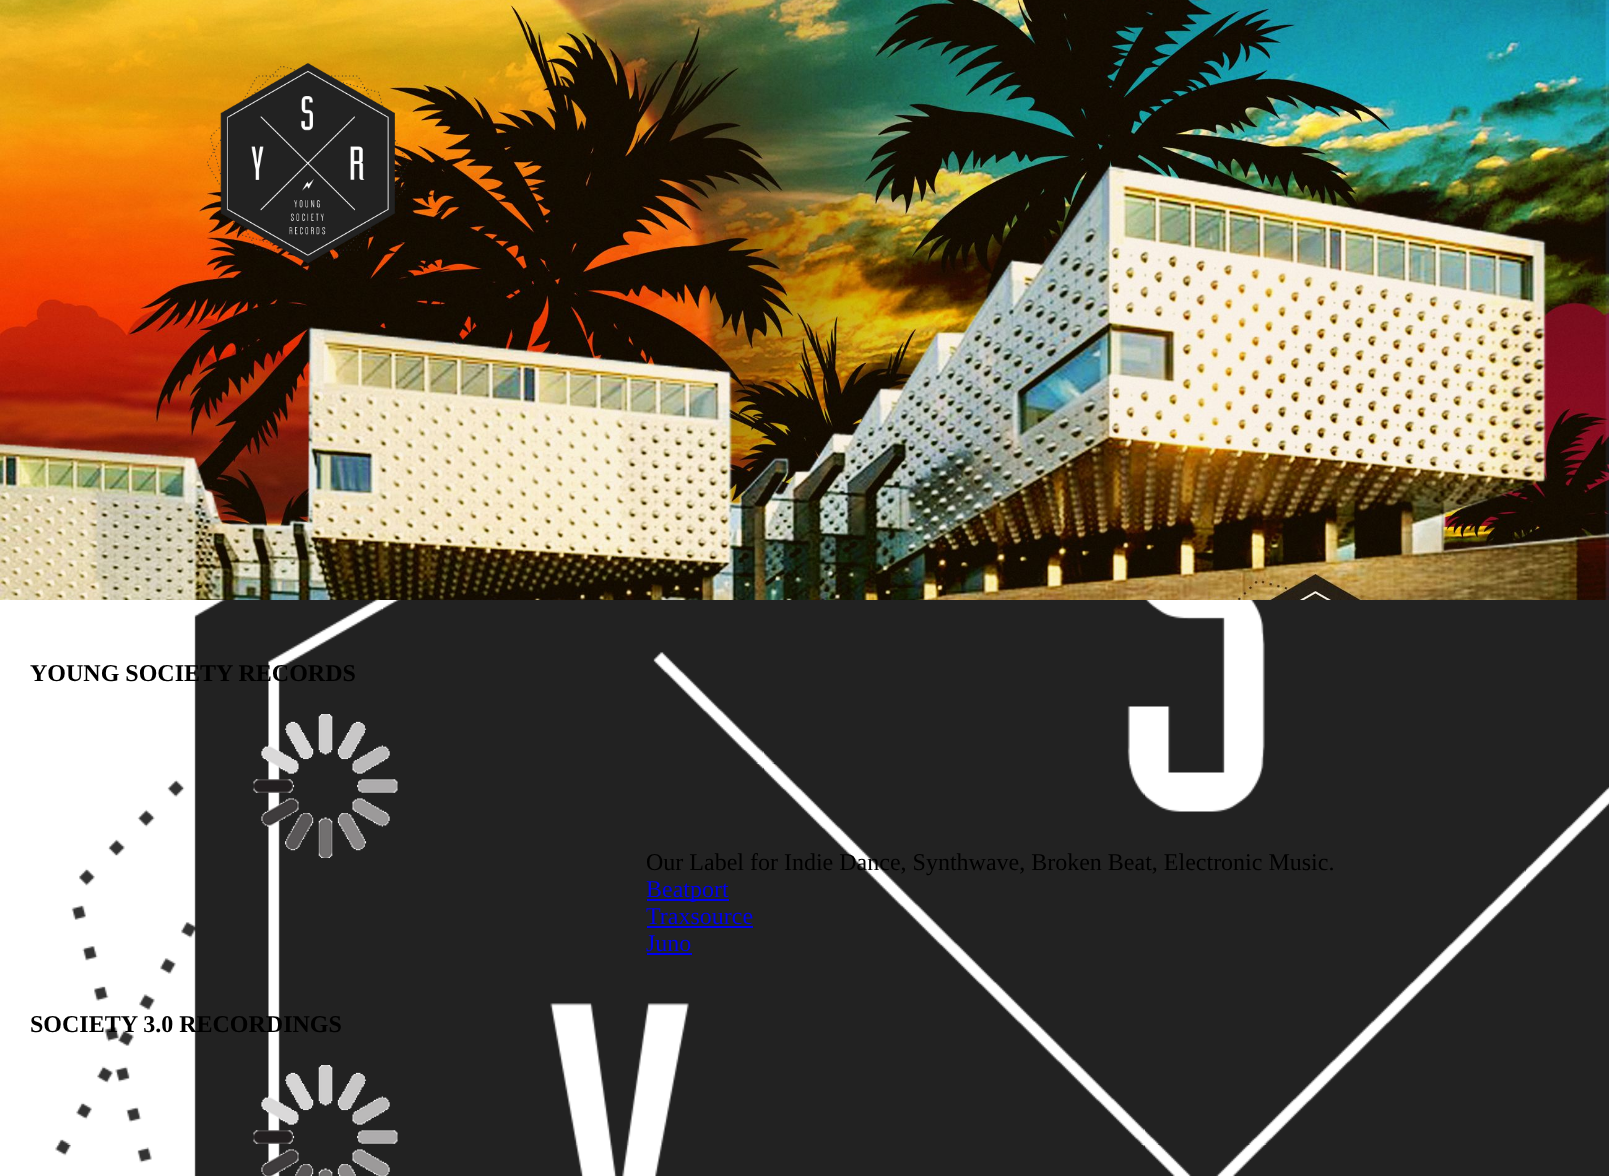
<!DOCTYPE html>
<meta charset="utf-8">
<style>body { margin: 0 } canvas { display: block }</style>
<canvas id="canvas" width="1609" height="1176"></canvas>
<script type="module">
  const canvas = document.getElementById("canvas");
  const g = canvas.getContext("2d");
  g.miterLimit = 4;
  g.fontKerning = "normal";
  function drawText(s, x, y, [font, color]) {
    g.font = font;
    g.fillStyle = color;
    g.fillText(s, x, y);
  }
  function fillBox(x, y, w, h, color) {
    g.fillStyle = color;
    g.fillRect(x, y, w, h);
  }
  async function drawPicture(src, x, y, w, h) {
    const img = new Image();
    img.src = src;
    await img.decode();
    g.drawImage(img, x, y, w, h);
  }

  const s1 = ["bold 24px Liberation Serif", "#000000"];
  const s2 = ["24px Liberation Serif", "#000000"];
  const s3 = ["24px Liberation Serif", "#0000EE"];

  fillBox(0, 0, 1609, 1176, "#FFFFFF");
  await drawPicture("pic1.png", 55, 600, 1554, 576);
  await drawPicture("pic2.png", 0, 0, 1609, 600);
  await drawPicture("pic3.png", 207, 63, 202, 201);
  drawText("YOUNG SOCIETY RECORDS", 30, 681, s1);
  await drawPicture("pic4.png", 253, 714, 145, 144);
  drawText("Our Label for Indie Dance, Synthwave, Broken Beat, Electronic Music.", 646, 870, s2);
  fillBox(647, 899, 82, 2, "#0000EE");
  drawText("Beatport", 646, 897, s3);
  drawText("Traxsource", 646, 924, s3);
  fillBox(647, 926, 106, 2, "#0000EE");
  drawText("Juno", 646, 951, s3);
  fillBox(647, 953, 45, 2, "#0000EE");
  drawText("SOCIETY 3.0 RECORDINGS", 30, 1032, s1);
  await drawPicture("pic5.png", 253, 1065, 145, 111);
</script>
